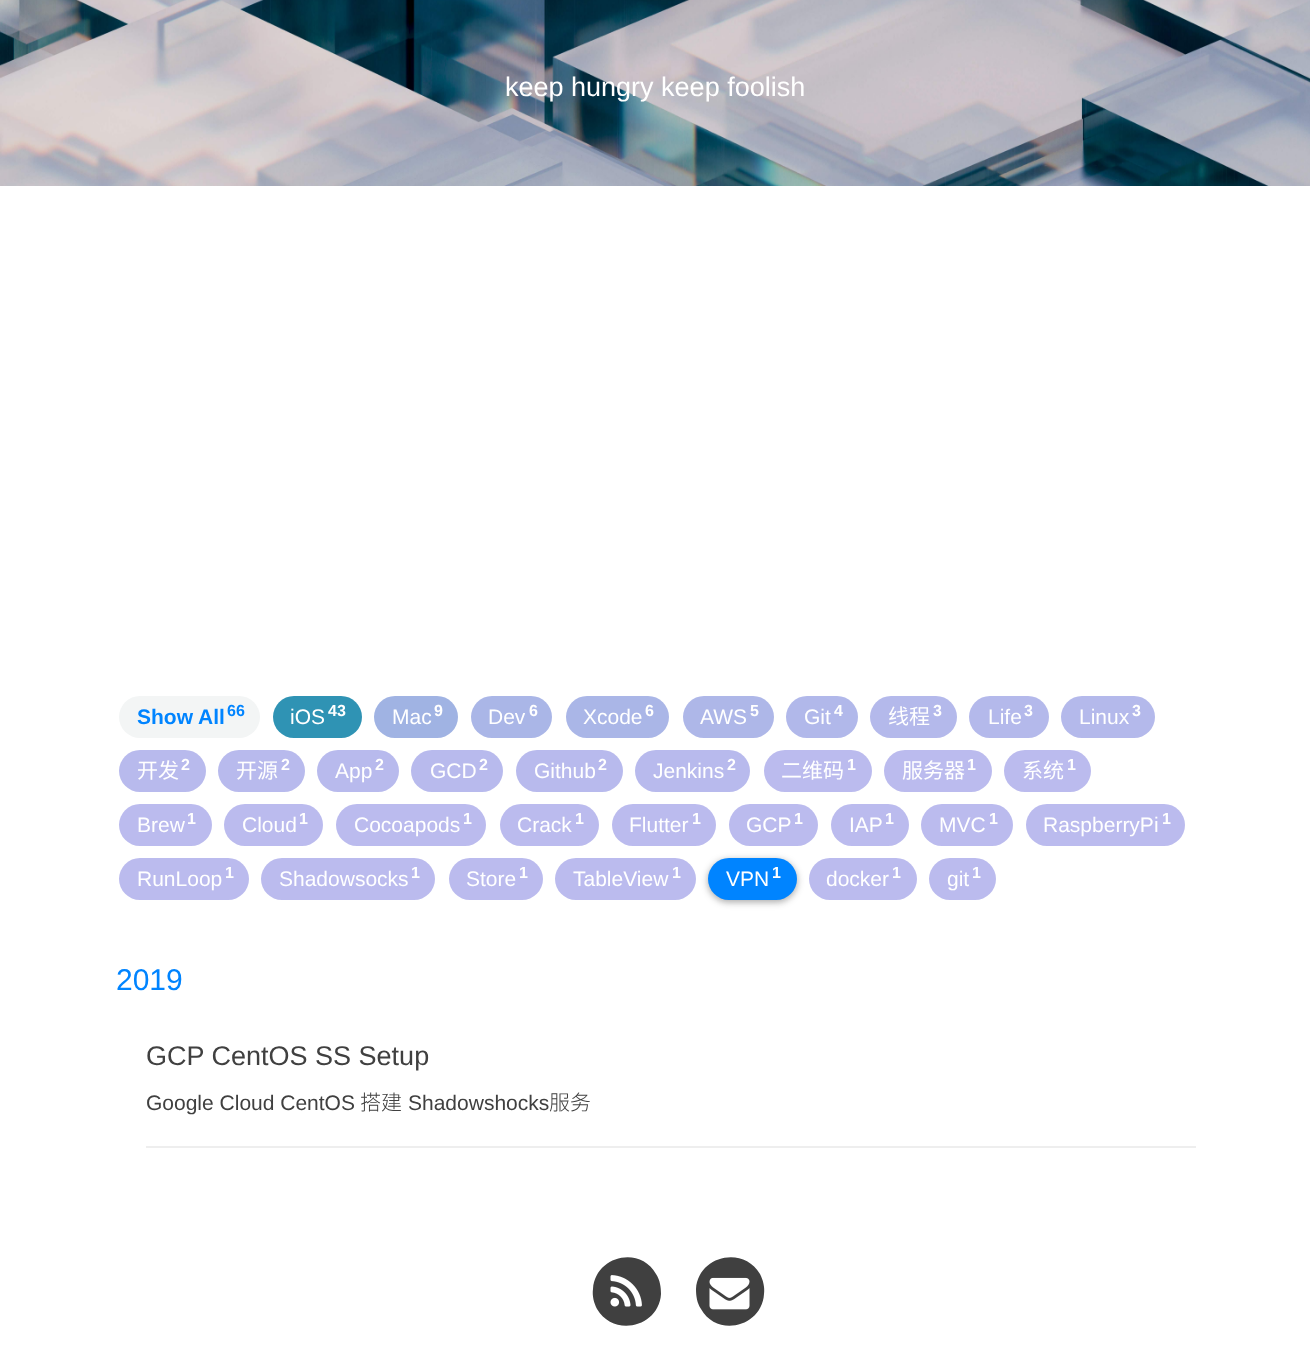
<!DOCTYPE html>
<meta charset="utf-8">
<style>body { margin: 0 } canvas { display: block }</style>
<canvas id="canvas" width="1310" height="1357"></canvas>
<script type="module">
  const canvas = document.getElementById("canvas");
  const g = canvas.getContext("2d");
  g.miterLimit = 4;
  g.fontKerning = "normal";
  function drawText(s, x, y, [font, color]) {
    g.font = font;
    g.fillStyle = color;
    g.fillText(s, x, y);
  }
  function fillBox(x, y, w, h, color) {
    g.fillStyle = color;
    g.fillRect(x, y, w, h);
  }
  function fillRounded(x, y, w, h, r, color) {
    g.fillStyle = color;
    g.beginPath();
    g.roundRect(x, y, w, h, r);
    g.fill();
  }
  async function drawPicture(src, x, y, w, h) {
    const img = new Image();
    img.src = src;
    await img.decode();
    g.drawImage(img, x, y, w, h);
  }

  const s1 = ["27px Liberation Sans", "#FFFFFF"];
  const s2 = ["bold 21px Liberation Sans", "#0084FF"];
  const s3 = ["bold 16px Liberation Sans", "#0084FF"];
  const s4 = ["21px Liberation Sans", "#FFFFFF"];
  const s5 = ["bold 16px Liberation Sans", "#FFFFFF"];
  const s6 = ["21px Noto Sans CJK SC", "#FFFFFF"];
  const s7 = ["30px Liberation Sans", "#0084FF"];
  const s8 = ["27px Liberation Sans", "#404040"];
  const s9 = ["21px Liberation Sans", "#404040"];
  const s10 = ["300 21px Noto Sans CJK SC", "#404040"];

  fillBox(0, 0, 1310, 1357, "#FFFFFF");
  await drawPicture("pic1.png", 0, 0, 1310, 186);
  drawText("keep hungry keep foolish", 505, 96, s1);
  fillRounded(119, 696, 141, 42, 21, "#F3F5F5");
  drawText("Show All", 137, 724, s2);
  drawText("66", 227, 716, s3);
  fillRounded(273, 696, 89, 42, 21, "#2F93B4");
  drawText("iOS", 290, 724, s4);
  drawText("43", 328, 716, s5);
  fillRounded(374, 696, 84, 42, 21, "#A0B3E3");
  drawText("Mac", 392, 724, s4);
  drawText("9", 434, 716, s5);
  fillRounded(471, 696, 81, 42, 21, "#AAB6E7");
  drawText("Dev", 488, 724, s4);
  drawText("6", 529, 716, s5);
  fillRounded(566, 696, 103, 42, 21, "#AAB6E7");
  drawText("Xcode", 583, 724, s4);
  drawText("6", 645, 716, s5);
  fillRounded(683, 696, 91, 42, 21, "#AEB7E8");
  drawText("AWS", 700, 724, s4);
  drawText("5", 750, 716, s5);
  fillRounded(786, 696, 72, 42, 21, "#B1B8EA");
  drawText("Git", 804, 724, s4);
  drawText("4", 834, 716, s5);
  fillRounded(870, 696, 87, 42, 21, "#B4B9EB");
  drawText("线程", 888, 724, s6);
  drawText("3", 933, 716, s5);
  fillRounded(969, 696, 80, 42, 21, "#B4B9EB");
  drawText("Life", 988, 724, s4);
  drawText("3", 1024, 716, s5);
  fillRounded(1061, 696, 94, 42, 21, "#B4B9EB");
  drawText("Linux", 1079, 724, s4);
  drawText("3", 1132, 716, s5);
  fillRounded(119, 750, 87, 42, 21, "#B8BAED");
  drawText("开发", 137, 778, s6);
  drawText("2", 181, 770, s5);
  fillRounded(218, 750, 87, 42, 21, "#B8BAED");
  drawText("开源", 236, 778, s6);
  drawText("2", 281, 770, s5);
  fillRounded(317, 750, 82, 42, 21, "#B8BAED");
  drawText("App", 335, 778, s4);
  drawText("2", 375, 770, s5);
  fillRounded(411, 750, 92, 42, 21, "#B8BAED");
  drawText("GCD", 430, 778, s4);
  drawText("2", 479, 770, s5);
  fillRounded(516, 750, 107, 42, 21, "#B8BAED");
  drawText("Github", 534, 778, s4);
  drawText("2", 598, 770, s5);
  fillRounded(635, 750, 115, 42, 21, "#B8BAED");
  drawText("Jenkins", 653, 778, s4);
  drawText("2", 727, 770, s5);
  fillRounded(764, 750, 108, 42, 21, "#BBBBEE");
  drawText("二维码", 781, 778, s6);
  drawText("1", 847, 770, s5);
  fillRounded(884, 750, 108, 42, 21, "#BBBBEE");
  drawText("服务器", 902, 778, s6);
  drawText("1", 967, 770, s5);
  fillRounded(1004, 750, 87, 42, 21, "#BBBBEE");
  drawText("系统", 1022, 778, s6);
  drawText("1", 1067, 770, s5);
  fillRounded(119, 804, 93, 42, 21, "#BBBBEE");
  drawText("Brew", 137, 832, s4);
  drawText("1", 187, 824, s5);
  fillRounded(224, 804, 99, 42, 21, "#BBBBEE");
  drawText("Cloud", 242, 832, s4);
  drawText("1", 299, 824, s5);
  fillRounded(336, 804, 150, 42, 21, "#BBBBEE");
  drawText("Cocoapods", 354, 832, s4);
  drawText("1", 463, 824, s5);
  fillRounded(500, 804, 99, 42, 21, "#BBBBEE");
  drawText("Crack", 517, 832, s4);
  drawText("1", 575, 824, s5);
  fillRounded(612, 804, 104, 42, 21, "#BBBBEE");
  drawText("Flutter", 629, 832, s4);
  drawText("1", 692, 824, s5);
  fillRounded(729, 804, 89, 42, 21, "#BBBBEE");
  drawText("GCP", 746, 832, s4);
  drawText("1", 794, 824, s5);
  fillRounded(831, 804, 78, 42, 21, "#BBBBEE");
  drawText("IAP", 849, 832, s4);
  drawText("1", 885, 824, s5);
  fillRounded(921, 804, 92, 42, 21, "#BBBBEE");
  drawText("MVC", 939, 832, s4);
  drawText("1", 989, 824, s5);
  fillRounded(1026, 804, 159, 42, 21, "#BBBBEE");
  drawText("RaspberryPi", 1043, 832, s4);
  drawText("1", 1162, 824, s5);
  fillRounded(119, 858, 130, 42, 21, "#BBBBEE");
  drawText("RunLoop", 137, 886, s4);
  drawText("1", 225, 878, s5);
  fillRounded(261, 858, 174, 42, 21, "#BBBBEE");
  drawText("Shadowsocks", 279, 886, s4);
  drawText("1", 411, 878, s5);
  fillRounded(449, 858, 94, 42, 21, "#BBBBEE");
  drawText("Store", 466, 886, s4);
  drawText("1", 519, 878, s5);
  fillRounded(555, 858, 141, 42, 21, "#BBBBEE");
  drawText("TableView", 573, 886, s4);
  drawText("1", 672, 878, s5);
  g.fillStyle = "rgba(0, 0, 0, 0.24)";
  g.filter = "blur(3px)";
  g.beginPath();
  g.roundRect(708, 860, 89, 42, 21);
  g.fill();
  g.filter = "none";
  g.fillStyle = "rgba(0, 0, 0, 0.12)";
  g.filter = "blur(4.5px)";
  g.beginPath();
  g.roundRect(708, 860, 89, 42, 21);
  g.fill();
  g.filter = "none";
  fillRounded(708, 858, 89, 42, 21, "#0084FF");
  drawText("VPN", 726, 886, s4);
  drawText("1", 772, 878, s5);
  fillRounded(809, 858, 108, 42, 21, "#BBBBEE");
  drawText("docker", 826, 886, s4);
  drawText("1", 892, 878, s5);
  fillRounded(929, 858, 67, 42, 21, "#BBBBEE");
  drawText("git", 947, 886, s4);
  drawText("1", 972, 878, s5);
  drawText("2019", 116, 990, s7);
  drawText("GCP CentOS SS Setup", 146, 1065, s8);
  drawText("Google Cloud CentOS", 146, 1110, s9);
  drawText("搭建", 360, 1110, s10);
  drawText("Shadowshocks", 408, 1110, s9);
  drawText("服务", 549, 1110, s10);
  fillBox(146, 1146, 1050, 2, "#EEEEEE");
  g.fillStyle = "#404040";
  g.beginPath();
  g.moveTo(656, 1274);
  g.bezierCurveTo(660, 1280, 661, 1287, 661, 1294);
  g.bezierCurveTo(659, 1327, 614, 1338, 597, 1309);
  g.bezierCurveTo(594, 1303, 592, 1296, 593, 1289);
  g.bezierCurveTo(595, 1256, 640, 1245, 656, 1274);
  g.closePath();
  g.fill();
  await drawPicture("pic2.png", 610, 1275, 32, 32);
  g.beginPath();
  g.moveTo(760, 1274);
  g.bezierCurveTo(763, 1280, 765, 1287, 764, 1294);
  g.bezierCurveTo(762, 1327, 717, 1338, 701, 1309);
  g.bezierCurveTo(697, 1303, 696, 1296, 696, 1289);
  g.bezierCurveTo(698, 1256, 743, 1245, 760, 1274);
  g.closePath();
  g.fill();
  await drawPicture("pic3.png", 709, 1277, 41, 33);
</script>
